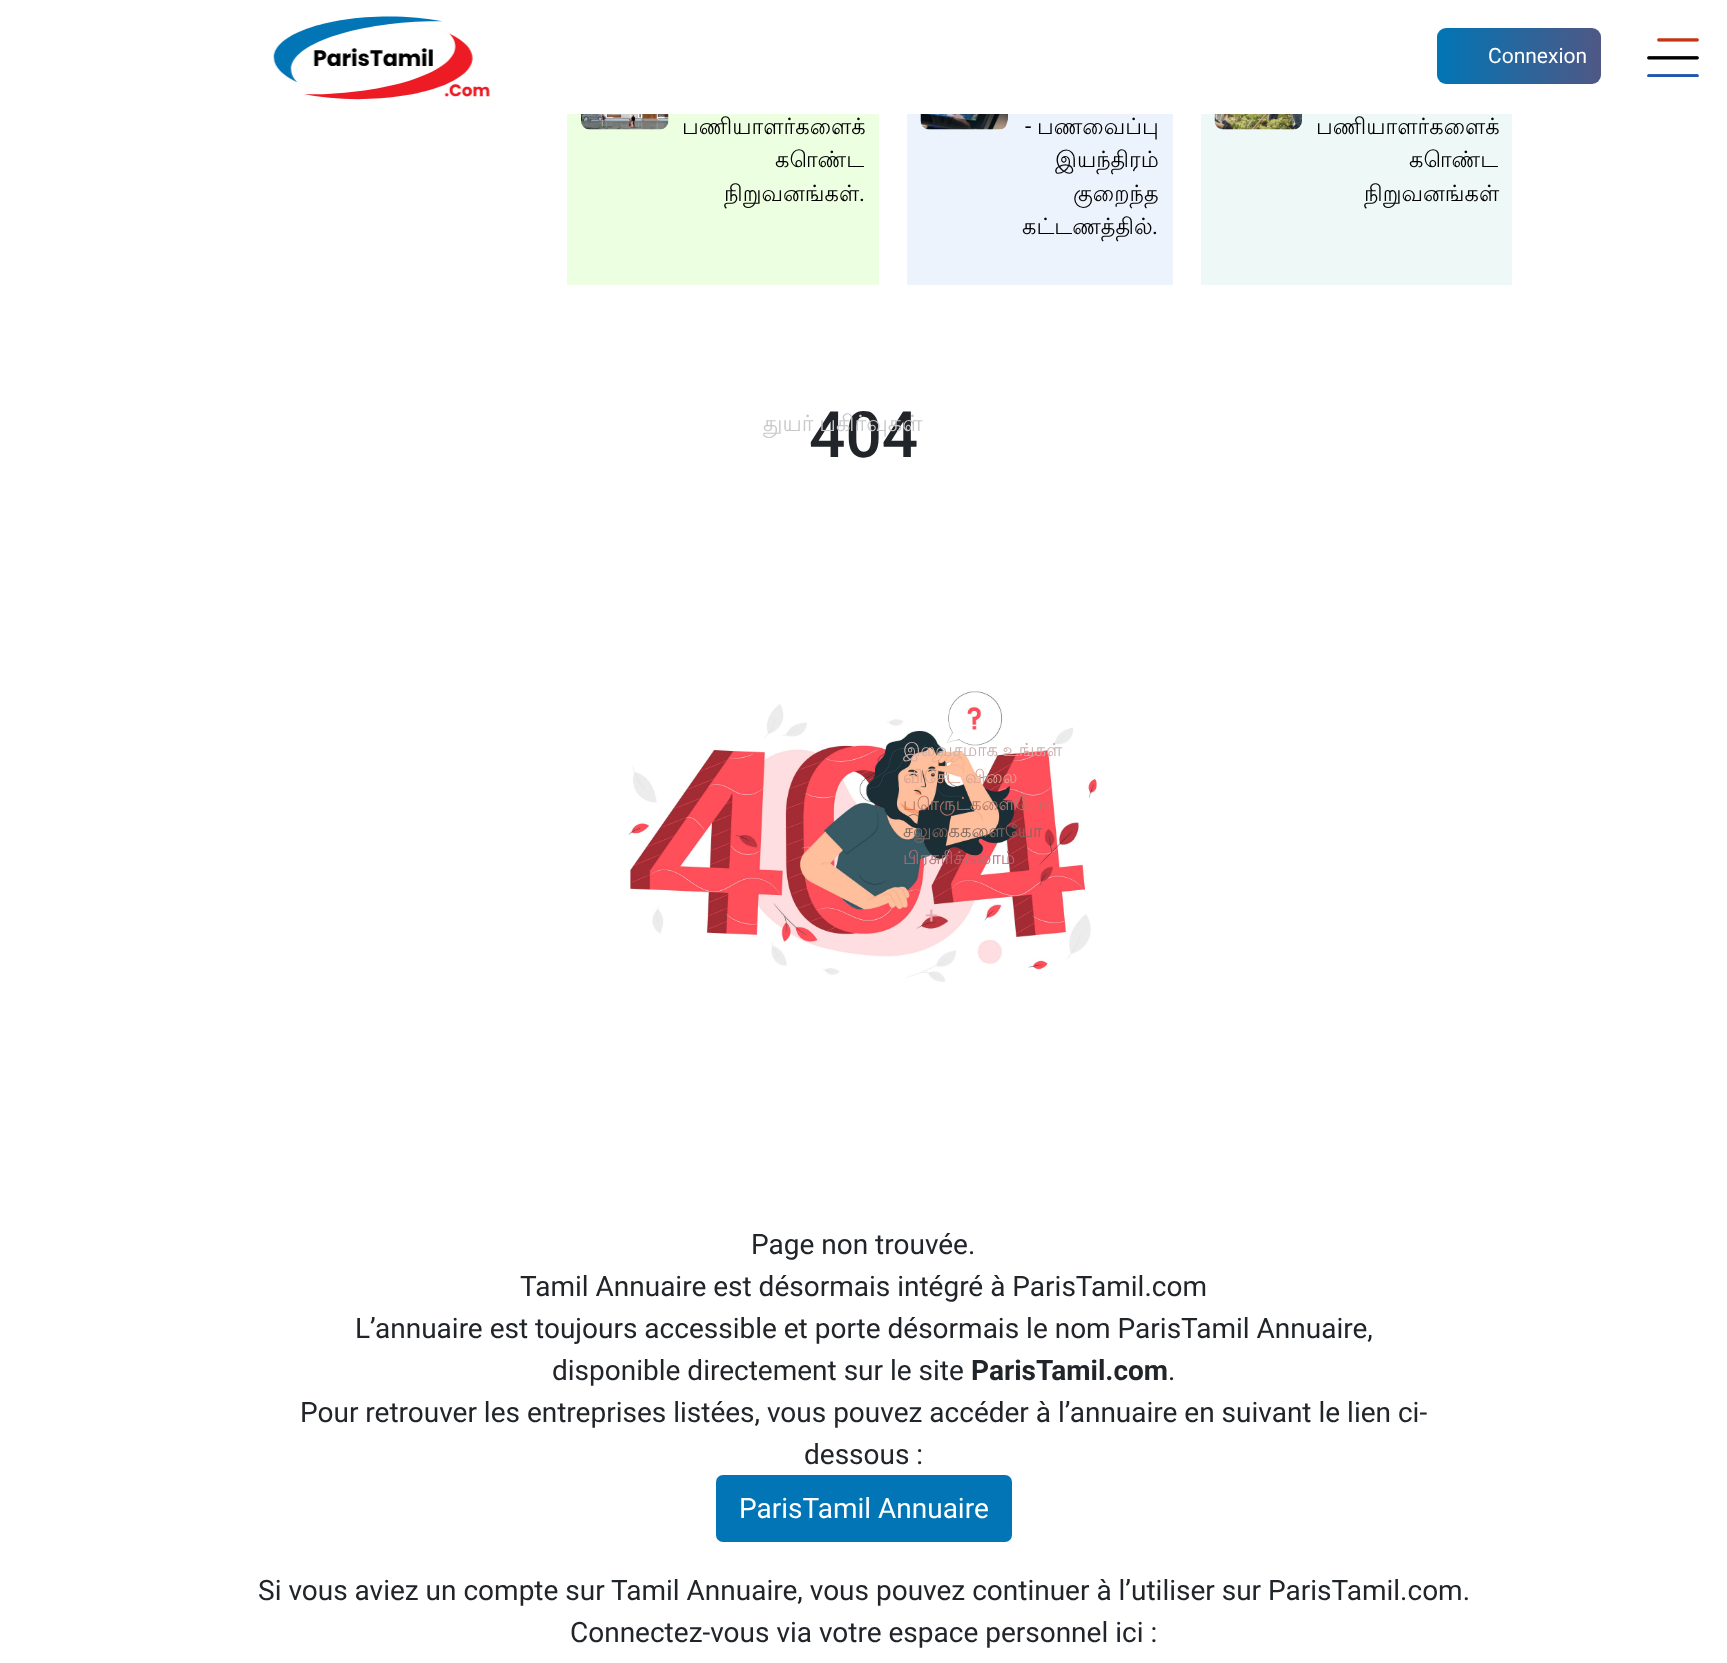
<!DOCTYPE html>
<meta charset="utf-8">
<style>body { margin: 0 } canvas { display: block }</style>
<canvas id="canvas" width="1727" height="1663"></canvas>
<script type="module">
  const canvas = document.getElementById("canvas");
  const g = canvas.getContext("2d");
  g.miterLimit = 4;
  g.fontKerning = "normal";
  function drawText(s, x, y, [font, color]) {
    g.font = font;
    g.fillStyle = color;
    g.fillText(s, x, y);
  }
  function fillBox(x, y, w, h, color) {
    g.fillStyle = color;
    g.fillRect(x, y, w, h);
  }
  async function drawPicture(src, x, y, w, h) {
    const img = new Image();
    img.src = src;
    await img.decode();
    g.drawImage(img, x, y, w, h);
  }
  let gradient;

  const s1 = ["21px Roboto", "#FFFFFF"];
  const s2 = ["22.5px Lohit Tamil", "#000000"];
  const s3 = ["22.5px Roboto", "#000000"];
  const s4 = ["500 64px Roboto", "#212529"];
  const s5 = ["28px Roboto", "#212529"];
  const s6 = ["bold 28px Roboto", "#212529"];
  const s7 = ["28px Roboto", "#FFFFFF"];
  const s8 = ["22.5px Lohit Tamil", "#C7C8C9"];
  const s9 = ["18px Lohit Tamil", "#CAAFAC"];
  const s10 = ["18px Lohit Tamil", "#DDA290"];
  const s11 = ["18px Lohit Tamil", "#B3776A"];
  const s12 = ["18px Lohit Tamil", "#806961"];
  const s13 = ["18px Lohit Tamil", "#B56B73"];
  const s14 = ["22.5px Roboto", "#E9AAAF"];

  fillBox(0, 0, 1727, 1663, "#FFFFFF");
  await drawPicture("pic1.png", 273, 16, 217, 84);
  gradient = g.createLinearGradient(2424, 196, 1437, 196);
  gradient.addColorStop(0, "#0175B5");
  gradient.addColorStop(0.5, "#ED1C24");
  gradient.addColorStop(1, "#0175B5");
  g.fillStyle = gradient;
  g.beginPath();
  g.roundRect(1437, 28, 164, 56, 9);
  g.fill();
  drawText("Connexion", 1488, 63, s1);
  await drawPicture("pic2.png", 1647, 38, 52, 39);
  fillBox(567, 114, 312, 171, "#ECFFE0");
  await drawPicture("pic3.png", 581, 114, 88, 16);
  drawText("பணியாளர்களைக்", 682, 134, s2);
  drawText("கொண்ட", 775, 167, s2);
  drawText("நிறுவனங்கள்", 724, 201, s2);
  drawText(".", 859, 201, s3);
  fillBox(907, 114, 266, 171, "#EDF3FC");
  await drawPicture("pic4.png", 920, 114, 88, 16);
  drawText("-", 1025, 134, s3);
  drawText("பணவைப்பு", 1037, 134, s2);
  drawText("இயந்திரம்", 1055, 167, s2);
  drawText("குறைந்த", 1073, 201, s2);
  drawText("கட்டணத்தில்", 1022, 234, s2);
  drawText(".", 1152, 234, s3);
  fillBox(1201, 114, 311, 171, "#EDF8F7");
  await drawPicture("pic5.png", 1214, 114, 88, 16);
  drawText("பணியாளர்களைக்", 1316, 134, s2);
  drawText("கொண்ட", 1409, 167, s2);
  drawText("நிறுவனங்கள்", 1364, 201, s2);
  drawText("404", 809, 457, s4);
  await drawPicture("pic6.png", 628, 691, 469, 291);
  drawText("Page non trouvée.", 751, 1254, s5);
  drawText("Tamil Annuaire est désormais intégré à ParisTamil.com", 520, 1296, s5);
  drawText("L’annuaire est toujours accessible et porte désormais le nom ParisTamil Annuaire,", 355, 1338, s5);
  drawText("disponible directement sur le site", 552, 1380, s5);
  drawText("ParisTamil.com", 971, 1380, s6);
  drawText(".", 1168, 1380, s5);
  drawText("Pour retrouver les entreprises listées, vous pouvez accéder à l’annuaire en suivant le lien ci-", 300, 1422, s5);
  drawText("dessous :", 804, 1464, s5);
  g.fillStyle = "#0175B5";
  g.beginPath();
  g.roundRect(717, 1476, 294, 65, 6);
  g.fill();
  g.strokeStyle = "#0175B5";
  g.lineWidth = 2;
  g.stroke();
  drawText("ParisTamil Annuaire", 739, 1518, s7);
  drawText("Si vous aviez un compte sur Tamil Annuaire, vous pouvez continuer à l’utiliser sur ParisTamil.com.", 258, 1600, s5);
  drawText("Connectez-vous via votre espace personnel ici :", 570, 1642, s5);
  g.wordSpacing = "-1px";
  drawText("துயர் பகிர்வுகள்", 763, 431, s8);
  drawText("இலவசமாக உங்கள்", 903, 756, s9);
  drawText("விசேட விலை", 903, 783, s10);
  g.wordSpacing = "0px";
  drawText("பொருட்களையோ", 903, 810, s11);
  drawText("சலுகைகளையோ", 903, 837, s12);
  drawText("பிரசுரிக்கலாம்", 903, 864, s13);
  drawText("+", 925, 923, s14);
</script>
